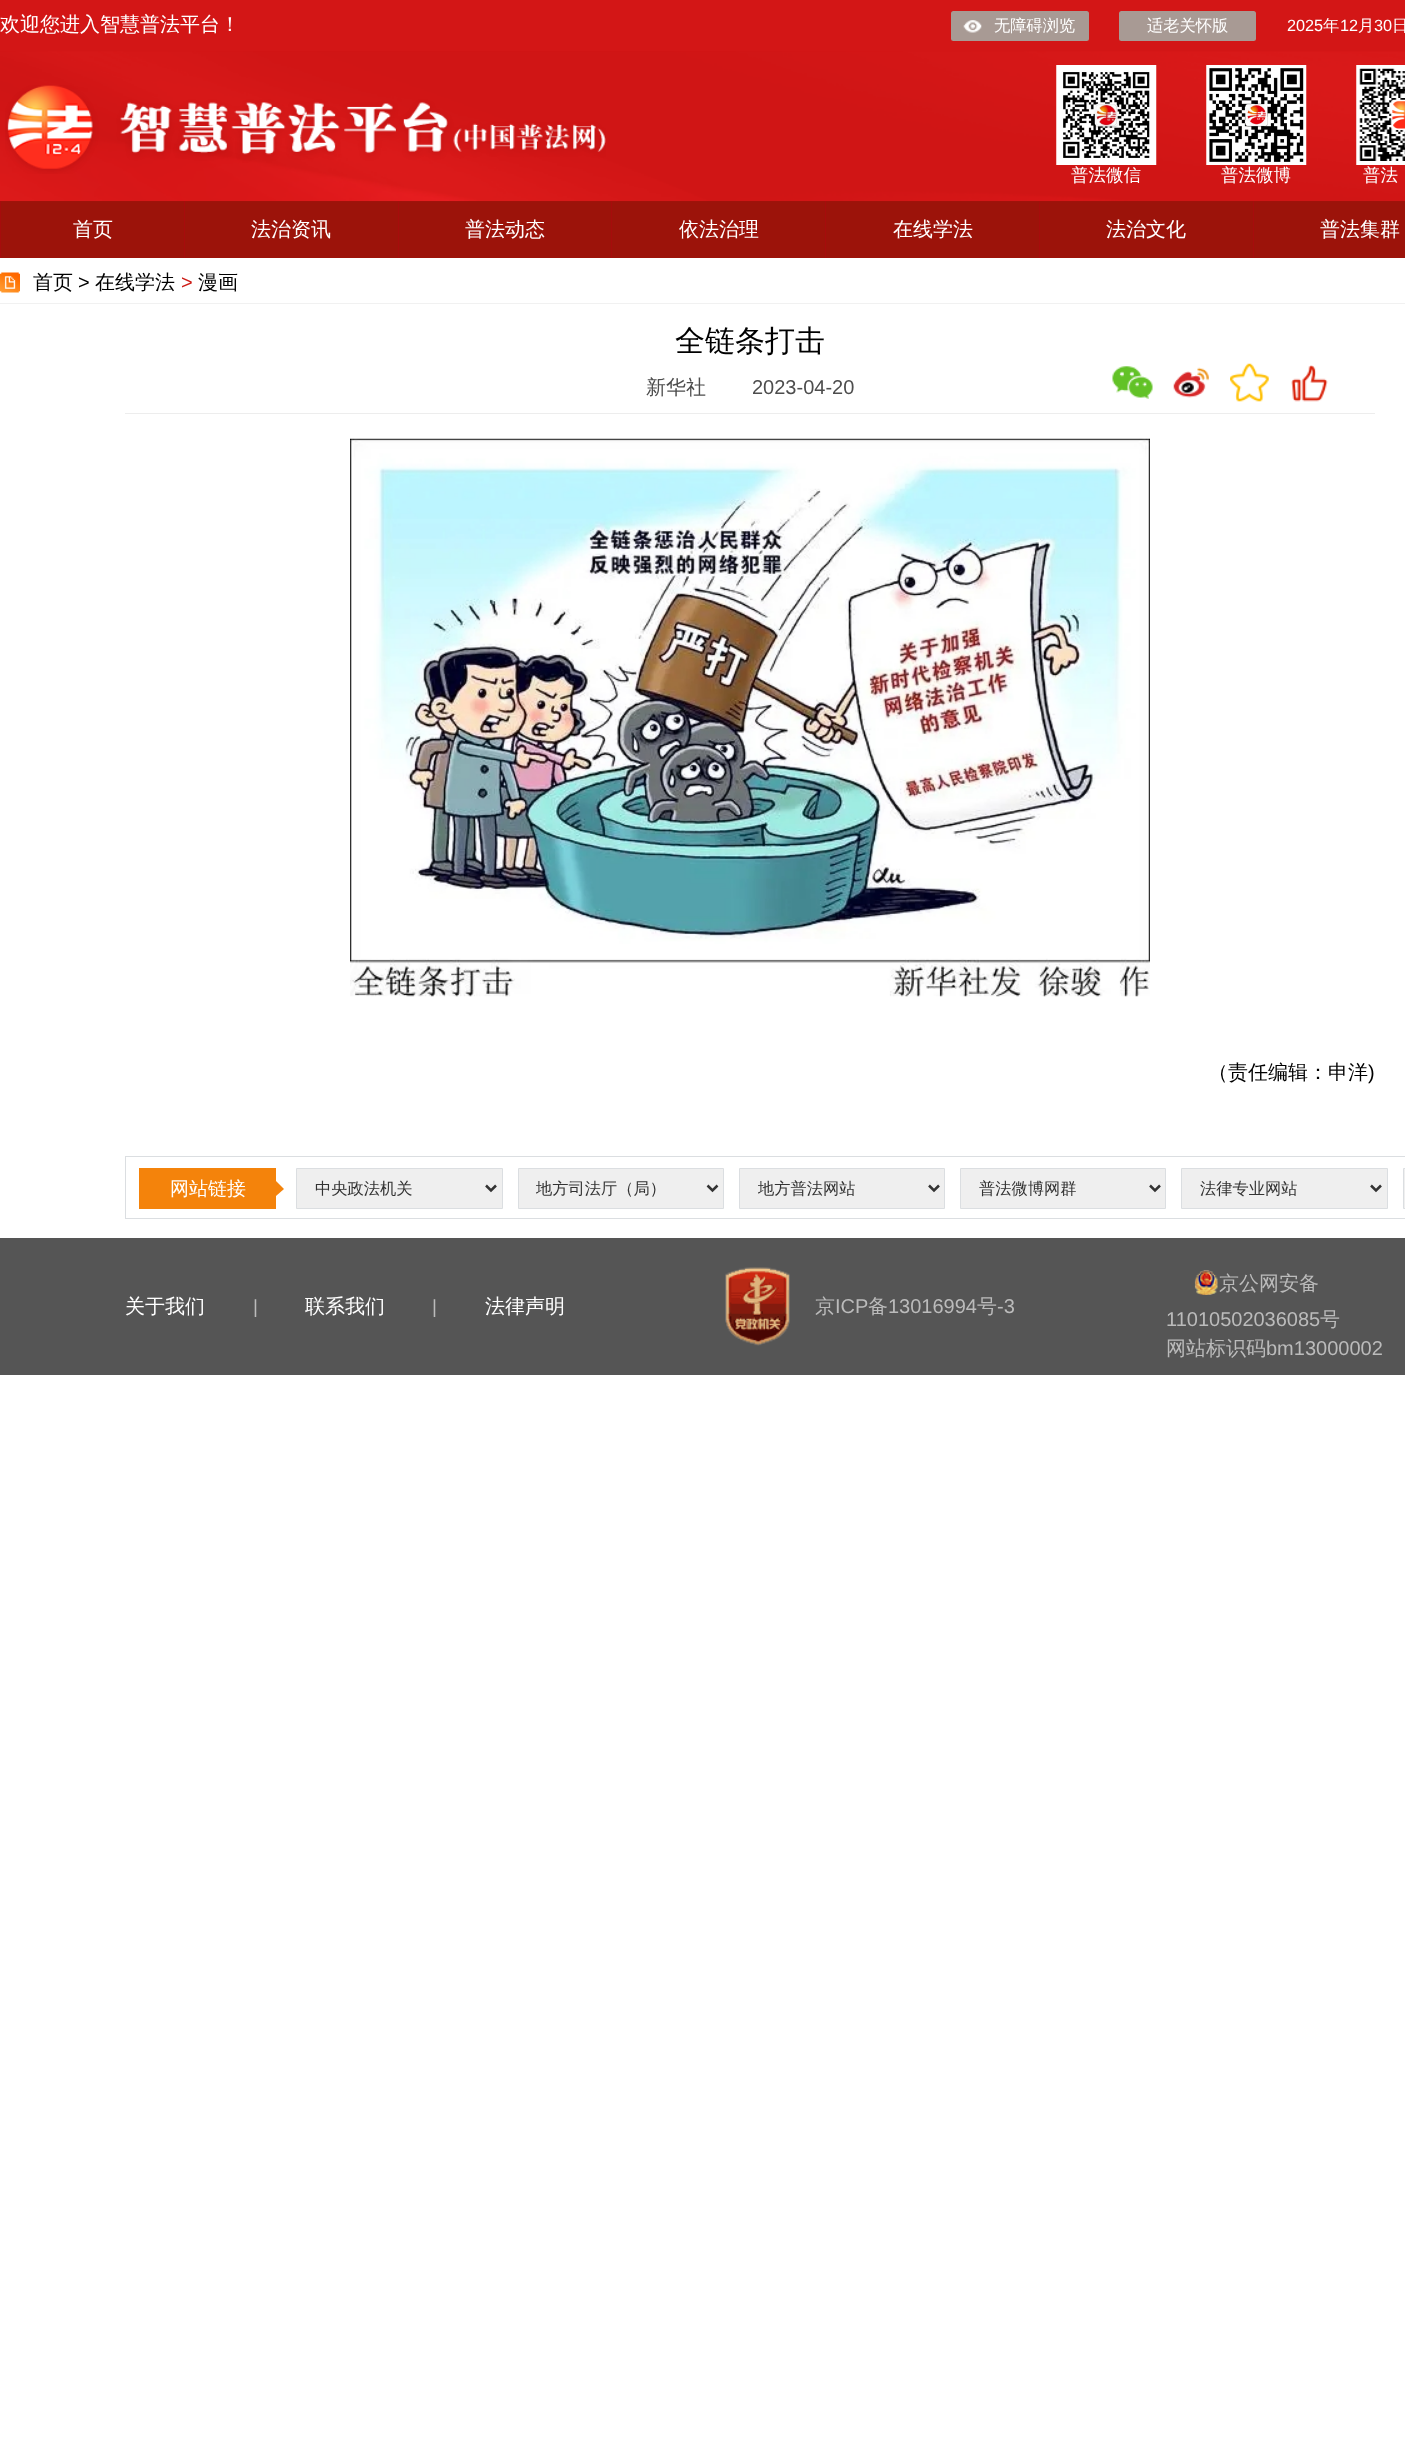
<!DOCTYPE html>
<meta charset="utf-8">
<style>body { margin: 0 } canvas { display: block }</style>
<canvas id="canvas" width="1405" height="2448"></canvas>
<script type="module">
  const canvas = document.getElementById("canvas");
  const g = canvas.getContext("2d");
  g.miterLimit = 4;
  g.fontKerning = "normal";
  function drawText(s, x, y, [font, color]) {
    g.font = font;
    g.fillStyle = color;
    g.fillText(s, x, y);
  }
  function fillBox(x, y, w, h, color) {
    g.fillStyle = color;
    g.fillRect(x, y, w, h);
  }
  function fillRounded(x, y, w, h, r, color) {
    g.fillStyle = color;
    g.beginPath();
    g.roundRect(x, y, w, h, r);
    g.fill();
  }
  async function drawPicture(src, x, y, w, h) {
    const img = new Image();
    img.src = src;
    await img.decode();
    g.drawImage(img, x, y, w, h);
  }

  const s1 = ["500 20px WenQuanYi Zen Hei", "#FFFFFF"];
  const s2 = ["500 16.25px WenQuanYi Zen Hei", "#FFFFFF"];
  const s3 = ["16.25px Liberation Sans", "#FFFFFF"];
  const s4 = ["500 17.5px WenQuanYi Zen Hei", "#FFFFFF"];
  const s5 = ["500 20px WenQuanYi Zen Hei", "#000000"];
  const s6 = ["20px Liberation Sans", "#000000"];
  const s7 = ["20px Liberation Sans", "#CD1C16"];
  const s8 = ["500 30px WenQuanYi Zen Hei", "#000000"];
  const s9 = ["500 20px WenQuanYi Zen Hei", "#4D4D4D"];
  const s10 = ["20px Liberation Sans", "#4D4D4D"];
  const s11 = ["500 19px WenQuanYi Zen Hei", "#FFFFFF"];
  const s12 = ["500 16.25px WenQuanYi Zen Hei", "#333333"];
  const s13 = ["19px Liberation Sans", "#BBBBBB"];
  const s14 = ["500 20px WenQuanYi Zen Hei", "#BBBBBB"];
  const s15 = ["20px Liberation Sans", "#BBBBBB"];

  fillBox(0, 0, 1405, 2448, "#FFFFFF");
  fillBox(0, 0, 1405, 52, "#D31616");
  drawText("欢迎您进入智慧普法平台！", 0, 31, s1);
  fillRounded(951, 11, 138, 30, 2.5, "#A89A94");
  await drawPicture("pic1.png", 963, 20, 19, 13);
  drawText("无障碍浏览", 994, 31, s2);
  fillRounded(1119, 11, 137, 30, 2.5, "#A89A94");
  drawText("适老关怀版", 1147, 31, s2);
  drawText("2025", 1287, 31, s3);
  drawText("年", 1323, 31, s2);
  drawText("12", 1340, 31, s3);
  drawText("月", 1358, 31, s2);
  drawText("30", 1374, 31, s3);
  drawText("日", 1392, 31, s2);
  fillBox(1, 201, 1404, 57, "#9C130A");
  await drawPicture("pic2.png", 0, 51, 1405, 151);
  await drawPicture("pic3.png", 5, 85, 601, 89);
  await drawPicture("pic4.png", 1056, 65, 101, 100);
  drawText("普法微信", 1071, 181, s4);
  await drawPicture("pic5.png", 1206, 65, 101, 100);
  drawText("普法微博", 1221, 181, s4);
  await drawPicture("pic6.png", 1356, 65, 49, 100);
  drawText("普法", 1363, 181, s4);
  fillBox(184, 201, 1, 57, "#A60C0C");
  fillBox(0, 201, 1, 57, "#A60C0C");
  drawText("首页", 73, 236, s1);
  fillBox(398, 201, 1, 57, "#A60C0C");
  drawText("法治资讯", 251, 236, s1);
  fillBox(611, 201, 1, 57, "#A60C0C");
  drawText("普法动态", 465, 236, s1);
  fillBox(825, 201, 1, 57, "#A60C0C");
  drawText("依法治理", 679, 236, s1);
  fillBox(1039, 201, 1, 57, "#A60C0C");
  drawText("在线学法", 893, 236, s1);
  fillBox(1253, 201, 1, 57, "#A60C0C");
  drawText("法治文化", 1106, 236, s1);
  drawText("普法集群", 1320, 236, s1);
  fillBox(0, 303, 1405, 1, "#F1F1F1");
  await drawPicture("pic7.png", 0, 272, 20, 21);
  drawText("首页", 33, 289, s5);
  drawText(">", 78, 289, s6);
  drawText("在线学法", 95, 289, s5);
  drawText(">", 181, 289, s7);
  drawText("漫画", 198, 289, s5);
  drawText("全链条打击", 675, 351, s8);
  fillBox(125, 413, 1250, 1, "#EDEDED");
  drawText("新华社", 646, 394, s9);
  drawText("2023-04-20", 752, 394, s10);
  await drawPicture("pic8.png", 1112, 366, 41, 33);
  await drawPicture("pic9.png", 1173, 367, 36, 31);
  await drawPicture("pic10.png", 1230, 363, 39, 39);
  await drawPicture("pic11.png", 1291, 365, 37, 37);
  await drawPicture("pic12.png", 350, 438, 800, 559);
  drawText("（责任编辑：申洋", 1208, 1079, s5);
  drawText(")", 1368, 1079, s6);
  g.strokeStyle = "#DBDEE1";
  g.strokeRect(125.5, 1156.5, 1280, 62);
  fillBox(139, 1168, 137, 41, "#F4830B");
  drawText("网站链接", 170, 1195, s11);
  g.fillStyle = "#F4830B";
  g.beginPath();
  g.moveTo(276, 1196);
  g.lineTo(276, 1181);
  g.lineTo(284, 1189);
  g.closePath();
  g.fill();
  g.fillStyle = "#EFEFEF";
  g.beginPath();
  g.rect(296.5, 1168.5, 206, 40);
  g.fill();
  g.stroke();
  g.beginPath();
  g.moveTo(486, 1185.5);
  g.lineTo(491, 1190.5);
  g.lineTo(496, 1185.5);
  g.strokeStyle = "#333333";
  g.lineWidth = 2.5;
  g.stroke();
  drawText("中央政法机关", 315, 1194, s12);
  g.fillStyle = "#EFEFEF";
  g.beginPath();
  g.rect(518.5, 1168.5, 205, 40);
  g.fill();
  g.strokeStyle = "#DBDEE1";
  g.lineWidth = 1;
  g.stroke();
  g.beginPath();
  g.moveTo(707.5, 1185.5);
  g.lineTo(712.5, 1190.5);
  g.lineTo(717.5, 1185.5);
  g.strokeStyle = "#333333";
  g.lineWidth = 2.5;
  g.stroke();
  drawText("地方司法厅（局）", 536, 1194, s12);
  g.fillStyle = "#EFEFEF";
  g.beginPath();
  g.rect(739.5, 1168.5, 205, 40);
  g.fill();
  g.strokeStyle = "#DBDEE1";
  g.lineWidth = 1;
  g.stroke();
  g.beginPath();
  g.moveTo(929, 1185.5);
  g.lineTo(934, 1190.5);
  g.lineTo(939, 1185.5);
  g.strokeStyle = "#333333";
  g.lineWidth = 2.5;
  g.stroke();
  g.save();
  g.beginPath();
  g.rect(758, 1178, 153, 21);
  g.clip();
  drawText("地方普法网站", 758, 1194, s12);
  g.restore();
  g.beginPath();
  g.rect(960.5, 1168.5, 205, 40);
  g.fill();
  g.strokeStyle = "#DBDEE1";
  g.lineWidth = 1;
  g.stroke();
  g.beginPath();
  g.moveTo(1150, 1185.5);
  g.lineTo(1155, 1190.5);
  g.lineTo(1160, 1185.5);
  g.strokeStyle = "#333333";
  g.lineWidth = 2.5;
  g.stroke();
  drawText("普法微博网群", 979, 1194, s12);
  g.fillStyle = "#EFEFEF";
  g.beginPath();
  g.rect(1181.5, 1168.5, 206, 40);
  g.fill();
  g.strokeStyle = "#DBDEE1";
  g.lineWidth = 1;
  g.stroke();
  g.beginPath();
  g.moveTo(1371, 1185.5);
  g.lineTo(1376, 1190.5);
  g.lineTo(1381, 1185.5);
  g.strokeStyle = "#333333";
  g.lineWidth = 2.5;
  g.stroke();
  drawText("法律专业网站", 1200, 1194, s12);
  g.fillStyle = "#EFEFEF";
  g.beginPath();
  g.rect(1403.5, 1168.5, 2, 40);
  g.fill();
  g.strokeStyle = "#DBDEE1";
  g.lineWidth = 1;
  g.stroke();
  fillBox(0, 1238, 1405, 137, "#555555");
  drawText("关于我们", 125, 1313, s1);
  drawText("|", 253, 1313, s13);
  drawText("联系我们", 305, 1313, s1);
  drawText("|", 432, 1313, s13);
  drawText("法律声明", 485, 1313, s1);
  await drawPicture("pic13.png", 725, 1267, 65, 79);
  drawText("京", 815, 1313, s14);
  drawText("ICP", 835, 1313, s15);
  drawText("备", 868, 1313, s14);
  drawText("13016994", 888, 1313, s15);
  drawText("号", 977, 1313, s14);
  drawText("-3", 997, 1313, s15);
  await drawPicture("pic14.png", 1194, 1270, 24, 25);
  drawText("京公网安备", 1219, 1290, s14);
  drawText("11010502036085", 1166, 1326, s15);
  drawText("号", 1320, 1326, s14);
  drawText("网站标识码", 1166, 1355, s14);
  drawText("bm13000002", 1266, 1355, s15);
</script>
